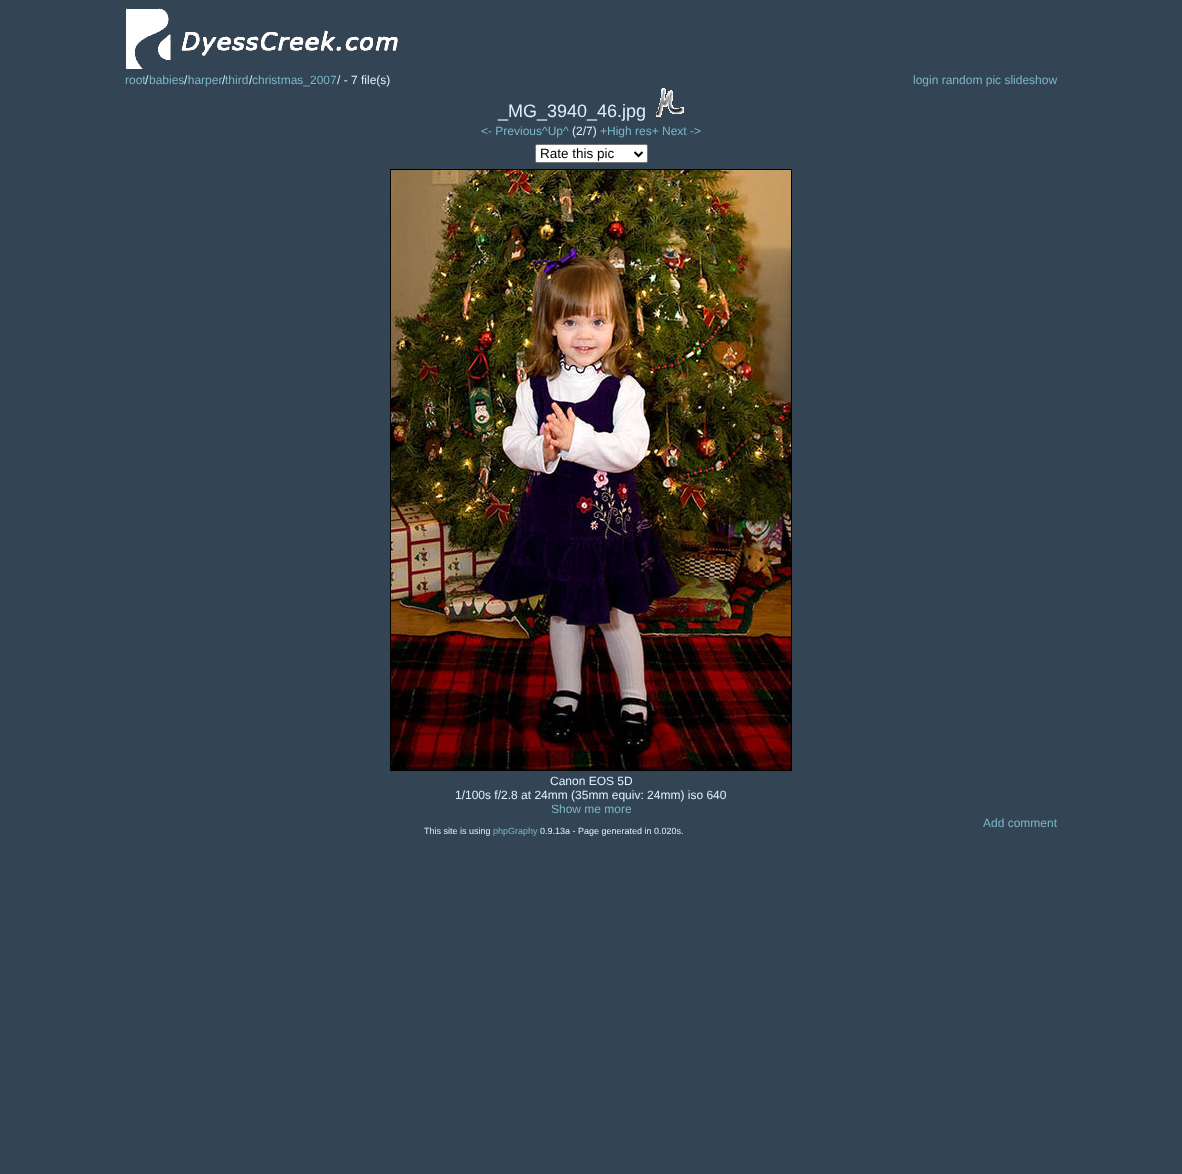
<!DOCTYPE html>
<meta charset="utf-8">
<style>body { margin: 0 } canvas { display: block }</style>
<canvas id="canvas" width="1182" height="1174"></canvas>
<script type="module">
  const canvas = document.getElementById("canvas");
  const g = canvas.getContext("2d");
  g.miterLimit = 4;
  g.fontKerning = "normal";
  function drawText(s, x, y, [font, color]) {
    g.font = font;
    g.fillStyle = color;
    g.fillText(s, x, y);
  }
  function fillBox(x, y, w, h, color) {
    g.fillStyle = color;
    g.fillRect(x, y, w, h);
  }
  async function drawPicture(src, x, y, w, h) {
    const img = new Image();
    img.src = src;
    await img.decode();
    g.drawImage(img, x, y, w, h);
  }

  const s1 = ["12px Liberation Sans", "#79B8C8"];
  const s2 = ["12px Liberation Sans", "#DDEEFF"];
  const s3 = ["18px Liberation Sans", "#DDEEFF"];
  const s4 = ["13.5px Liberation Sans", "#000000"];
  const s5 = ["9px Liberation Sans", "#DDEEFF"];
  const s6 = ["9px Liberation Sans", "#79B8C8"];

  fillBox(0, 0, 1182, 1174, "#334455");
  await drawPicture("pic1.png", 126, 8, 272, 61);
  drawText("root babies harper", 125, 84, s1);
  drawText("/", 145, 84, s2);
  drawText("/", 184, 84, s2);
  drawText("/", 222, 84, s2);
  drawText("third", 225, 84, s1);
  drawText("/", 249, 84, s2);
  drawText("christmas_2007", 252, 84, s1);
  drawText("/ - 7 file(s)", 337, 84, s2);
  drawText("login random pic slideshow", 913, 84, s1);
  drawText("_MG_3940_46.jpg", 498, 117, s3);
  await drawPicture("pic2.png", 656, 88, 28, 29);
  drawText("<- Previous^Up^", 481, 135, s1);
  drawText("(2/7)", 572, 135, s2);
  drawText("+High res+ Next ->", 600, 135, s1);
  g.fillStyle = "#FFFFFF";
  g.beginPath();
  g.roundRect(535.5, 144.5, 112, 18, 1.5);
  g.fill();
  g.strokeStyle = "#767676";
  g.stroke();
  g.beginPath();
  g.moveTo(634.5, 152);
  g.lineTo(638.5, 156);
  g.lineTo(642.5, 152);
  g.strokeStyle = "#000000";
  g.lineWidth = 2;
  g.stroke();
  drawText("Rate this pic", 540, 158, s4);
  g.lineWidth = 1;
  g.strokeRect(390.5, 169.5, 401, 601);
  await drawPicture("pic3.png", 391, 170, 400, 600);
  drawText("Canon EOS 5D", 550, 785, s2);
  drawText("1/100s f/2.8 at 24mm (35mm equiv: 24mm) iso 640", 455, 799, s2);
  drawText("Show me more", 551, 813, s1);
  drawText("Add comment", 983, 827, s1);
  drawText("This site is using", 424, 834, s5);
  drawText("phpGraphy", 493, 834, s6);
  drawText("0.9.13a - Page generated in 0.020s.", 540, 834, s5);
</script>
